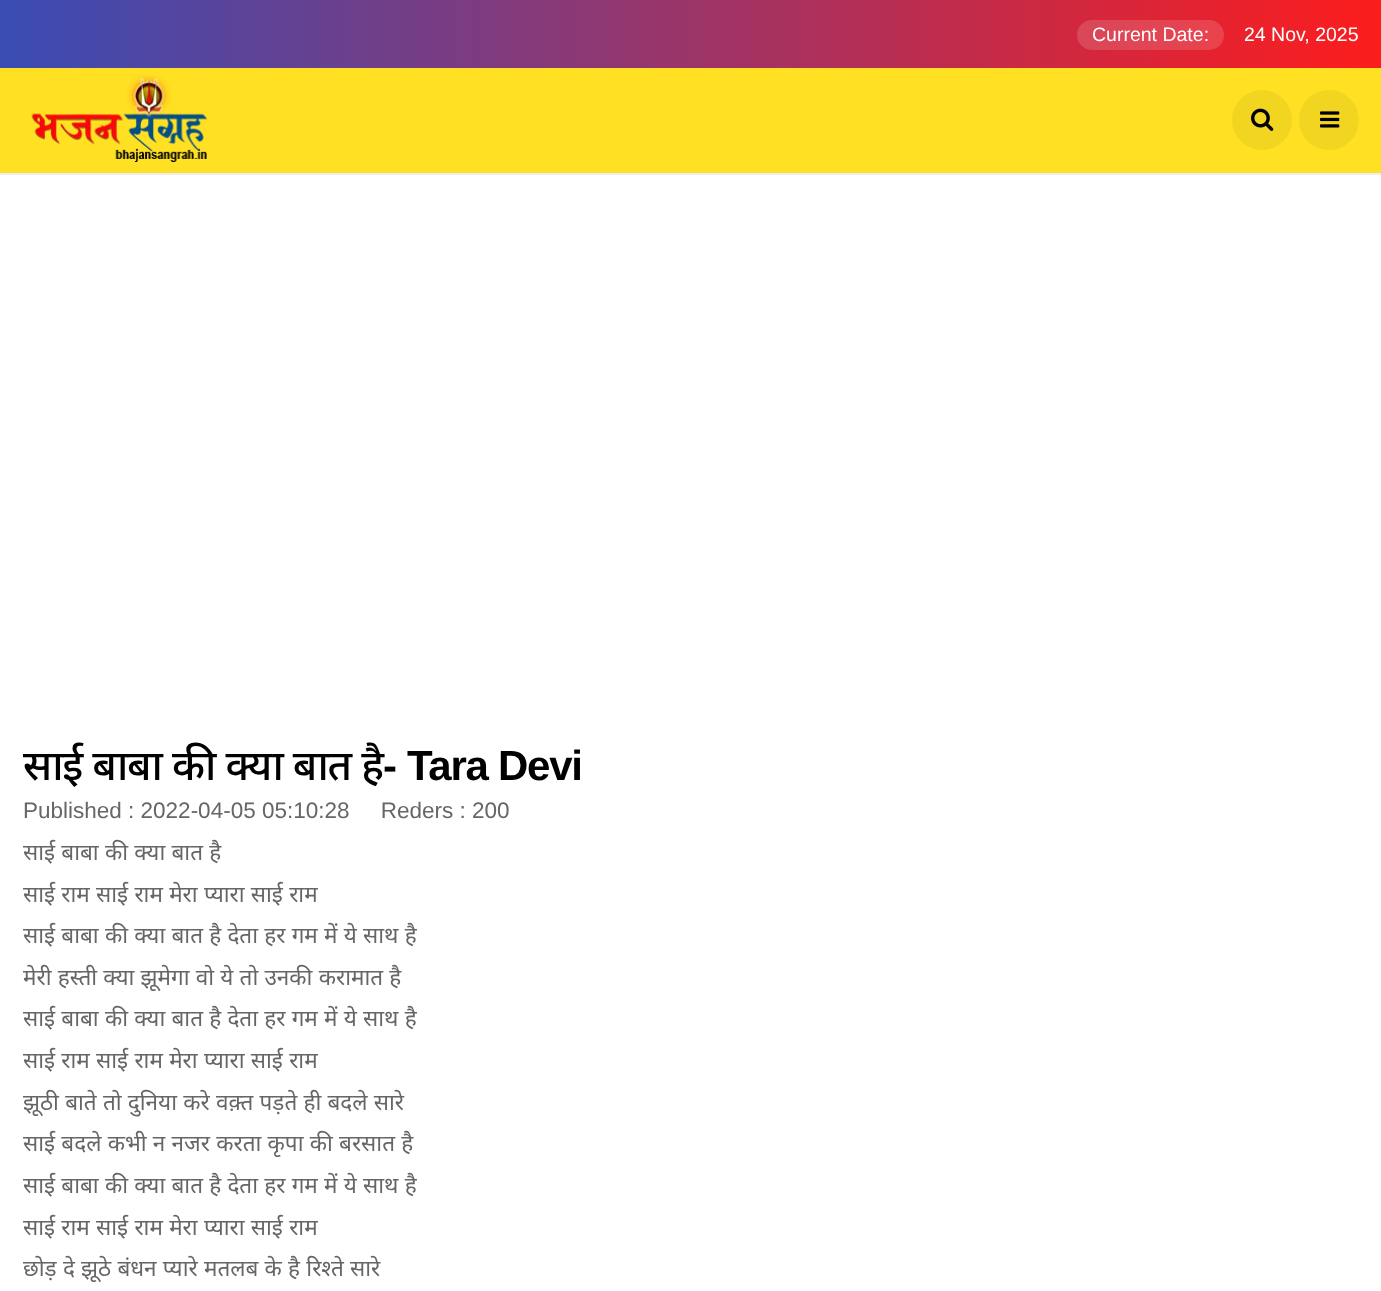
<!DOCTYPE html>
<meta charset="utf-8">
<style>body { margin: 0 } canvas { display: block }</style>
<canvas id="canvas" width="1381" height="1291"></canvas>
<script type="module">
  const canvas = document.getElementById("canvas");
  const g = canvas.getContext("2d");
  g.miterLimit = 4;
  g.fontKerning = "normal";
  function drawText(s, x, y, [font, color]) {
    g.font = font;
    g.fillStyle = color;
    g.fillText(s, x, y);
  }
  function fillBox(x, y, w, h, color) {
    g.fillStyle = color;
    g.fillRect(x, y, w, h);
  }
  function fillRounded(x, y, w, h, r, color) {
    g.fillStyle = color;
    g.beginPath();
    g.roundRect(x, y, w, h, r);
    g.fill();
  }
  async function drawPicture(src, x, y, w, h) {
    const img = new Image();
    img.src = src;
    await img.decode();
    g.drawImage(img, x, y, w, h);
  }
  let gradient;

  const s1 = ["19.5px Liberation Sans", "#FFFFFF"];
  const s2 = ["500 42px Noto Sans", "#000000"];
  const s3 = ["bold 42px Liberation Sans", "#000000"];
  const s4 = ["22.5px Liberation Sans", "#666666"];
  const s5 = ["22.5px Noto Sans", "#666666"];

  fillBox(0, 0, 1381, 1291, "#FFFFFF");
  gradient = g.createLinearGradient(0, 34, 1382, 34);
  gradient.addColorStop(0, "#3A4CB4");
  gradient.addColorStop(1, "#FD1D1D");
  g.fillStyle = gradient;
  g.fillRect(0, 0, 1381, 68);
  fillRounded(1077, 20, 147, 30, 15, "rgba(255, 255, 255, 0.15)");
  drawText("Current Date:", 1092, 41, s1);
  drawText("24 Nov, 2025", 1244, 41, s1);
  fillBox(0, 68, 1381, 105, "#FFE023");
  fillBox(0, 173, 1381, 2, "#EEEEEE");
  await drawPicture("pic1.png", 31, 75, 177, 87);
  g.fillStyle = "#F2D521";
  g.beginPath();
  g.arc(1262, 120, 30, 0, Math.PI * 2);
  g.fill();
  await drawPicture("pic2.png", 1251, 108, 23, 23);
  g.beginPath();
  g.arc(1329, 120, 30, 0, Math.PI * 2);
  g.fill();
  await drawPicture("pic3.png", 1320, 111, 20, 17);
  g.letterSpacing = "-1.25px";
  g.wordSpacing = "0.75px";
  drawText("साई बाबा की क्या बात है", 23, 780, s2);
  g.wordSpacing = "0px";
  drawText("-", 383, 780, s3);
  drawText("Tara Devi", 407, 780, s3);
  g.letterSpacing = "0px";
  drawText("Published : 2022-04-05 05:10:28     Reders : 200", 23, 818, s4);
  g.wordSpacing = "0.4px";
  drawText("साई बाबा की क्या बात है", 23, 860, s5);
  drawText("साई राम साई राम मेरा प्यारा साई राम", 23, 902, s5);
  drawText("साई बाबा की क्या बात है देता हर गम में ये साथ है", 23, 943, s5);
  drawText("मेरी हस्ती क्या झूमेगा वो ये तो उनकी करामात है", 23, 985, s5);
  drawText("साई बाबा की क्या बात है देता हर गम में ये साथ है", 23, 1026, s5);
  drawText("साई राम साई राम मेरा प्यारा साई राम", 23, 1068, s5);
  drawText("झूठी बाते तो दुनिया करे वक़्त पड़ते ही बदले सारे", 23, 1110, s5);
  drawText("साई बदले कभी न नजर करता कृपा की बरसात है", 23, 1151, s5);
  drawText("साई बाबा की क्या बात है देता हर गम में ये साथ है", 23, 1193, s5);
  drawText("साई राम साई राम मेरा प्यारा साई राम", 23, 1235, s5);
  drawText("छोड़ दे झूठे बंधन प्यारे मतलब के है रिश्ते सारे", 23, 1276, s5);
</script>
